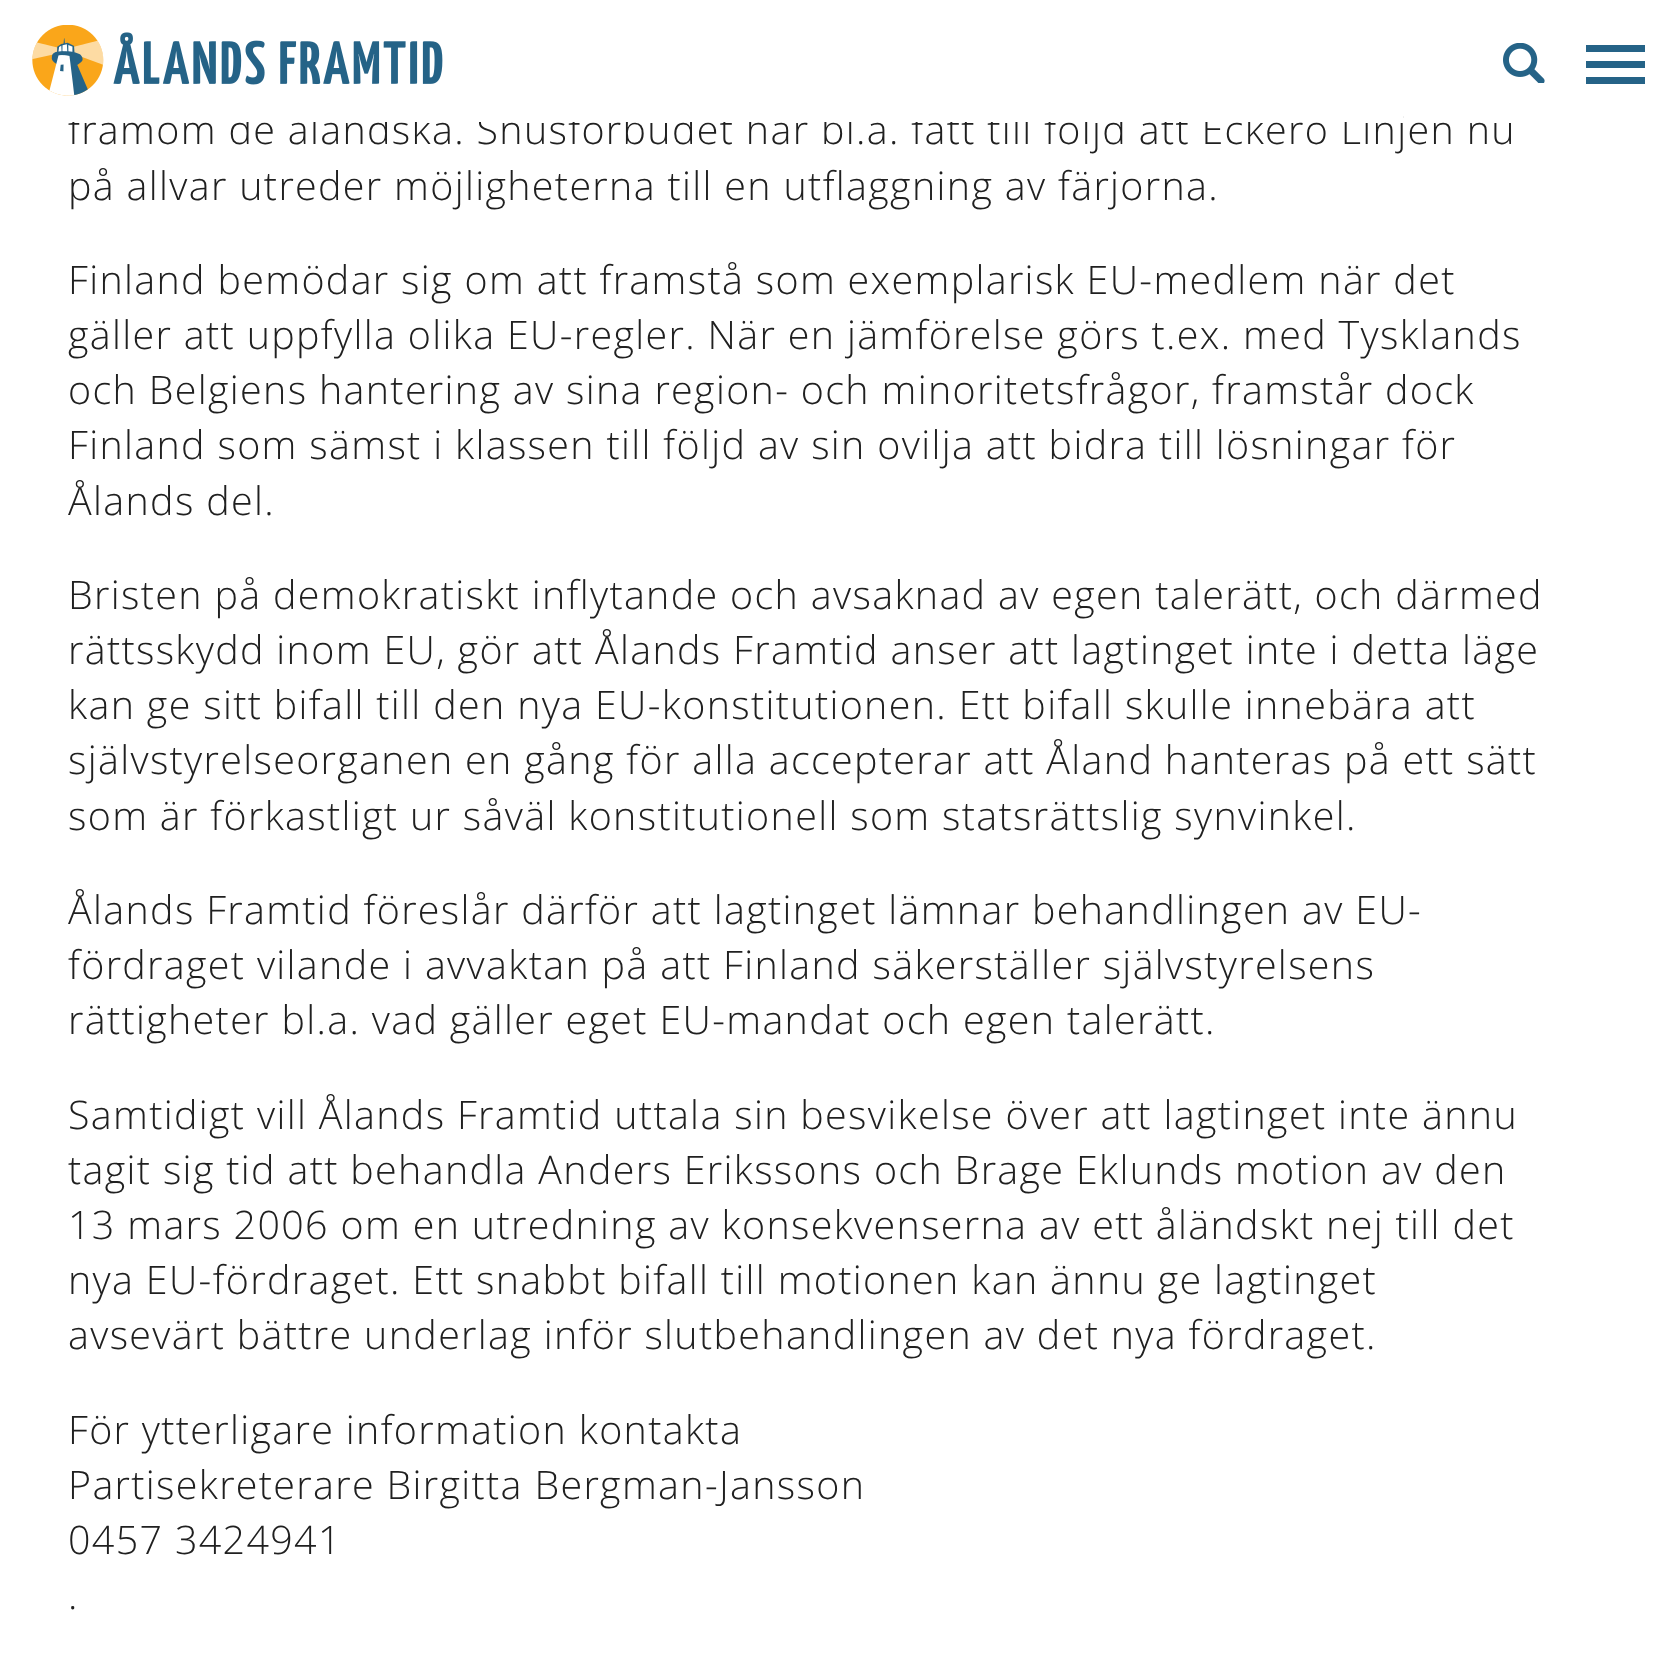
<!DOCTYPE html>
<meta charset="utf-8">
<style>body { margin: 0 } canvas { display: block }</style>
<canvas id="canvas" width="1677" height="1653"></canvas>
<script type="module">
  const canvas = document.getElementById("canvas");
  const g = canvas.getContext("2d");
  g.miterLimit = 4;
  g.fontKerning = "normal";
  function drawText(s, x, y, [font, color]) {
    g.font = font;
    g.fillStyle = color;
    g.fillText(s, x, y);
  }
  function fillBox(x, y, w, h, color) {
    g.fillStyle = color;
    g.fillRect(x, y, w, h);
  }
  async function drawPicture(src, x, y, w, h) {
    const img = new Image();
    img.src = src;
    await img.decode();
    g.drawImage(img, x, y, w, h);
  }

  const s1 = ["300 39.4px Open Sans", "#202020"];

  fillBox(0, 0, 1677, 1653, "#FFFFFF");
  g.letterSpacing = "1.35px";
  drawText("framom de åländska. Snusförbudet har bl.a. fått till följd att Eckerö Linjen nu", 68, 144, s1);
  fillBox(71, 112, 1332, 10, "#FFFFFF");
  await drawPicture("pic1.png", 32, 25, 411, 71);
  await drawPicture("pic2.png", 1503, 43, 42, 40);
  fillBox(1586, 45, 59, 7, "#256387");
  fillBox(1586, 61, 59, 7, "#256387");
  fillBox(1586, 77, 59, 7, "#256387");
  drawText("på allvar utreder möjligheterna till en utflaggning av färjorna.", 68, 200, s1);
  drawText("Finland bemödar sig om att framstå som exemplarisk EU-medlem när det", 68, 294, s1);
  drawText("gäller att uppfylla olika EU-regler. När en jämförelse görs t.ex. med Tysklands", 68, 349, s1);
  drawText("och Belgiens hantering av sina region- och minoritetsfrågor, framstår dock", 68, 404, s1);
  drawText("Finland som sämst i klassen till följd av sin ovilja att bidra till lösningar för", 68, 459, s1);
  drawText("Ålands del.", 68, 515, s1);
  drawText("Bristen på demokratiskt inflytande och avsaknad av egen talerätt, och därmed", 68, 609, s1);
  drawText("rättsskydd inom EU, gör att Ålands Framtid anser att lagtinget inte i detta läge", 68, 664, s1);
  drawText("kan ge sitt bifall till den nya EU-konstitutionen. Ett bifall skulle innebära att", 68, 719, s1);
  drawText("självstyrelseorganen en gång för alla accepterar att Åland hanteras på ett sätt", 68, 774, s1);
  drawText("som är förkastligt ur såväl konstitutionell som statsrättslig synvinkel.", 68, 830, s1);
  drawText("Ålands Framtid föreslår därför att lagtinget lämnar behandlingen av EU-", 68, 924, s1);
  drawText("fördraget vilande i avvaktan på att Finland säkerställer självstyrelsens", 68, 979, s1);
  drawText("rättigheter bl.a. vad gäller eget EU-mandat och egen talerätt.", 68, 1034, s1);
  drawText("Samtidigt vill Ålands Framtid uttala sin besvikelse över att lagtinget inte ännu", 68, 1129, s1);
  drawText("tagit sig tid att behandla Anders Erikssons och Brage Eklunds motion av den", 68, 1184, s1);
  drawText("13 mars 2006 om en utredning av konsekvenserna av ett åländskt nej till det", 68, 1239, s1);
  drawText("nya EU-fördraget. Ett snabbt bifall till motionen kan ännu ge lagtinget", 68, 1294, s1);
  drawText("avsevärt bättre underlag inför slutbehandlingen av det nya fördraget.", 68, 1349, s1);
  drawText("För ytterligare information kontakta", 68, 1444, s1);
  drawText("Partisekreterare Birgitta Bergman-Jansson", 68, 1499, s1);
  drawText("0457 3424941", 68, 1554, s1);
  drawText(".", 68, 1609, s1);
</script>
